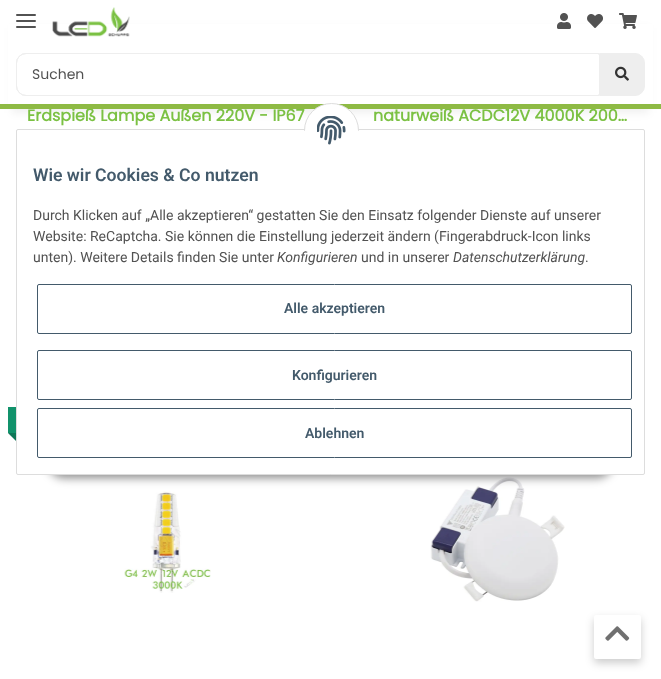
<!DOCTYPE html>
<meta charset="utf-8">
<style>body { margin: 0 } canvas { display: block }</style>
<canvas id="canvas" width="661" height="679"></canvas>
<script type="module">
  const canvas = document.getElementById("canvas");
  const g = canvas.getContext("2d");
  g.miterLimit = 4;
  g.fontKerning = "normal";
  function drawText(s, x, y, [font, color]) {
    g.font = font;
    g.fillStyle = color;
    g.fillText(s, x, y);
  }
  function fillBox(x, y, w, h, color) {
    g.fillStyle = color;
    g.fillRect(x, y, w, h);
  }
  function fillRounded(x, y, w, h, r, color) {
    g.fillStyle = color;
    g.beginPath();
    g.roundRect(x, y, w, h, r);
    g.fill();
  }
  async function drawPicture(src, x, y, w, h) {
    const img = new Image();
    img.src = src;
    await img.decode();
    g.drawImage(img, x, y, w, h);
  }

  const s1 = ["14px Poppins", "#525252"];
  const s2 = ["bold 16px Poppins", "#7BC143"];
  const s3 = ["600 17.6px Roboto", "#435A6B"];
  const s4 = ["14px Roboto", "#525252"];
  const s5 = ["italic 14px Roboto", "#525252"];
  const s6 = ["600 14px Roboto", "#435A6B"];

  fillBox(0, 0, 661, 679, "#FFFFFF");
  g.fillStyle = "rgba(0, 0, 0, 0.06)";
  g.filter = "blur(4.5px)";
  g.beginPath();
  g.rect(12, 28, 637, 85);
  g.fill();
  g.filter = "none";
  fillBox(8, 24, 645, 80, "#FFFFFF");
  fillRounded(16, 20, 20, 2, 1, "#525252");
  fillRounded(16, 14, 20, 2, 1, "#525252");
  fillRounded(16, 26, 20, 2, 1, "#525252");
  await drawPicture("pic1.png", 52, 7, 78, 30);
  await drawPicture("pic2.png", 557, 13, 14, 16);
  await drawPicture("pic3.png", 587, 14, 16, 14);
  await drawPicture("pic4.png", 619, 13, 18, 16);
  g.beginPath();
  g.roundRect(16.5, 53.5, 583, 42, [9.5, 1.5, 1.5, 9.5]);
  g.strokeStyle = "#EEEEEE";
  g.stroke();
  g.beginPath();
  g.roundRect(16.5, 53.5, 583, 42, [9.5, 1.5, 1.5, 9.5]);
  g.stroke();
  drawText("Suchen", 32, 79, s1);
  g.fillStyle = "#EEEEEE";
  g.beginPath();
  g.roundRect(599.5, 53.5, 45, 42, [0, 9.5, 9.5, 0]);
  g.fill();
  g.stroke();
  await drawPicture("pic5.png", 615, 66, 14, 15);
  drawText("Erdspieß Lampe Außen 220V - IP67", 27, 121, s2);
  drawText("naturweiß ACDC12V 4000K 200…", 373, 121, s2);
  fillBox(0, 104, 661, 5, "#8EBA44");
  g.fillStyle = "rgba(0, 0, 0, 0.3)";
  g.filter = "blur(1px)";
  g.beginPath();
  g.roundRect(10, 409, 94, 26, 2);
  g.fill();
  g.filter = "none";
  fillBox(8, 407, 8, 26, "#11926B");
  g.fillStyle = "#0E7757";
  g.beginPath();
  g.moveTo(16, 433);
  g.lineTo(16, 441);
  g.lineTo(8, 433);
  g.closePath();
  g.fill();
  await drawPicture("pic6.png", 124, 491, 87, 102);
  await drawPicture("pic7.png", 430, 477, 135, 125);
  g.fillStyle = "rgba(0, 0, 0, 0.45)";
  g.filter = "blur(5px)";
  g.beginPath();
  g.roundRect(48, 446, 565, 32, 16);
  g.fill();
  g.filter = "none";
  g.fillStyle = "#FFFFFF";
  g.beginPath();
  g.roundRect(16.5, 129.5, 628, 345, 1.5);
  g.fill();
  g.strokeStyle = "#DDDDDD";
  g.stroke();
  g.beginPath();
  g.arc(331.5, 130.5, 27, 0, Math.PI * 2);
  g.fill();
  g.stroke();
  fillBox(304, 131, 55, 27, "#FFFFFF");
  await drawPicture("pic8.png", 317, 116, 29, 29);
  drawText("Wie wir Cookies & Co nutzen", 33, 181, s3);
  drawText("Durch Klicken auf „Alle akzeptieren“ gestatten Sie den Einsatz folgender Dienste auf unserer", 33, 220, s4);
  drawText("Website: ReCaptcha. Sie können die Einstellung jederzeit ändern (Fingerabdruck-Icon links", 33, 241, s4);
  drawText("unten). Weitere Details finden Sie unter", 33, 262, s4);
  drawText("Konfigurieren", 277, 262, s5);
  drawText("und in unserer", 361, 262, s4);
  drawText("Datenschutzerklärung", 453, 262, s5);
  drawText(".", 585, 262, s4);
  g.beginPath();
  g.roundRect(37.5, 284.5, 594, 49, 1.5);
  g.strokeStyle = "#435A6B";
  g.stroke();
  drawText("Alle akzeptieren", 284, 313, s6);
  g.beginPath();
  g.roundRect(37.5, 350.5, 594, 49, 1.5);
  g.stroke();
  drawText("Konfigurieren", 292, 380, s6);
  g.beginPath();
  g.roundRect(37.5, 408.5, 594, 49, 1.5);
  g.stroke();
  drawText("Ablehnen", 305, 438, s6);
  g.fillStyle = "rgba(0, 0, 0, 0.2)";
  g.filter = "blur(4px)";
  g.beginPath();
  g.roundRect(594, 619, 47, 44, 2);
  g.fill();
  g.filter = "none";
  fillRounded(594, 615, 47, 44, 2, "#FFFFFF");
  await drawPicture("pic9.png", 605, 626, 25, 15);
</script>
